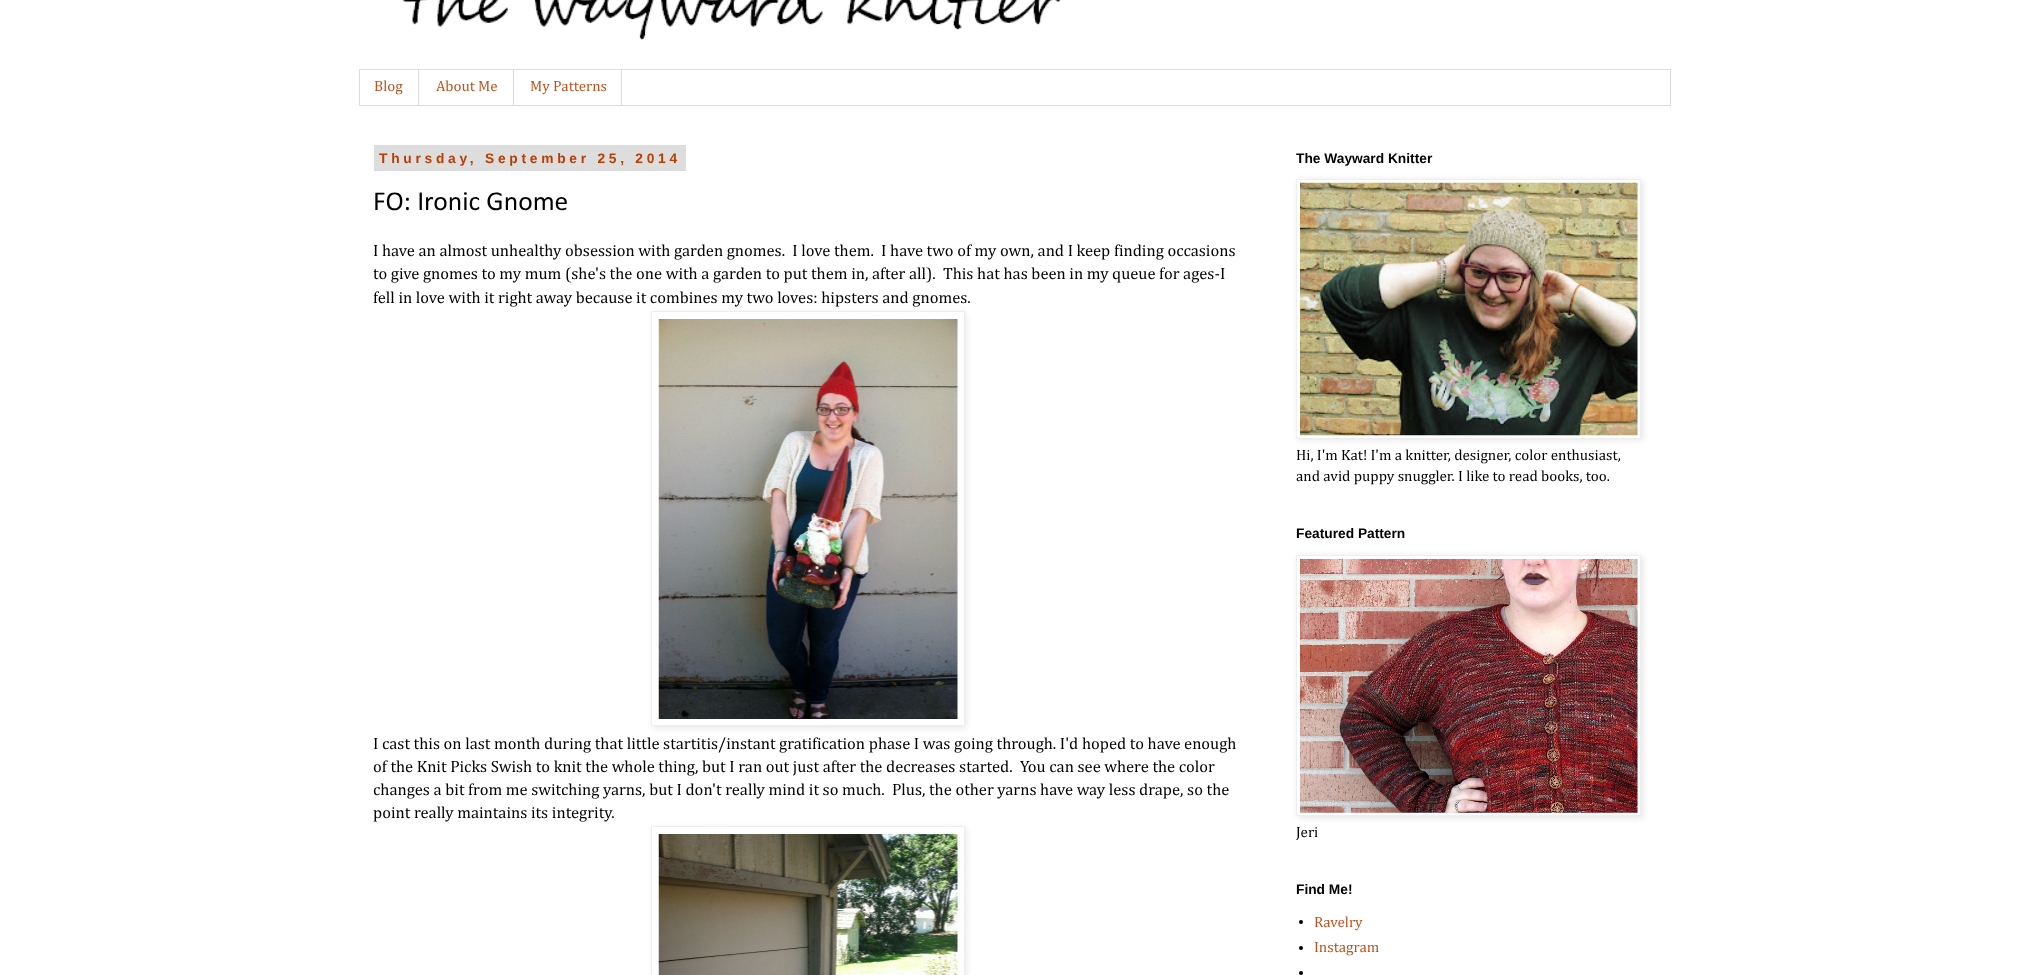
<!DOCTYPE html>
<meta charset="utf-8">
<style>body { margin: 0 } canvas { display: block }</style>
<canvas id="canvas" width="2028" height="975"></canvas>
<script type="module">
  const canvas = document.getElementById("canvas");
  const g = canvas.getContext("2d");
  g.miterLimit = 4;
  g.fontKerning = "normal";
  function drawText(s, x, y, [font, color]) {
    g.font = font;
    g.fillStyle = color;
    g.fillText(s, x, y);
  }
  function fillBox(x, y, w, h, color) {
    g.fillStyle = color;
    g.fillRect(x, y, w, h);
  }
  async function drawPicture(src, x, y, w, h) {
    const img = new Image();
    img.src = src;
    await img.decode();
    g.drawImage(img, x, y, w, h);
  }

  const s1 = ["15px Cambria", "#BB5421"];
  const s2 = ["bold 13.75px Liberation Sans", "#BB3C00"];
  const s3 = ["27.5px Calibri", "#000000"];
  const s4 = ["16.5px Cambria", "#000000"];
  const s5 = ["bold 13.75px Liberation Sans", "#000000"];
  const s6 = ["15px Cambria", "#000000"];

  fillBox(0, 0, 2028, 975, "#FFFFFF");
  await drawPicture("pic1.png", 402, 0, 659, 41);
  g.strokeStyle = "#DDDDDD";
  g.strokeRect(359.5, 69.5, 1311, 36);
  fillBox(418, 70, 1, 35, "#DDDDDD");
  drawText("Blog", 374, 91, s1);
  fillBox(513, 70, 1, 35, "#DDDDDD");
  drawText("About Me", 436, 91, s1);
  fillBox(621, 70, 1, 35, "#DDDDDD");
  drawText("My Patterns", 530, 91, s1);
  fillBox(374, 145, 312, 26, "#DDDDDD");
  g.letterSpacing = "3.75px";
  drawText("Thursday, September 25, 2014", 379, 163, s2);
  g.letterSpacing = "0px";
  drawText("FO: Ironic Gnome", 373, 210, s3);
  drawText("I have an almost unhealthy obsession with garden gnomes.  I love them.  I have two of my own, and I keep finding occasions", 373, 256, s4);
  drawText("to give gnomes to my mum (she's the one with a garden to put them in, after all).  This hat has been in my queue for ages-I", 373, 279, s4);
  drawText("fell in love with it right away because it combines my two loves: hipsters and gnomes.", 373, 303, s4);
  g.fillStyle = "rgba(0, 0, 0, 0.1)";
  g.filter = "blur(3px)";
  g.beginPath();
  g.rect(653, 313, 313, 415);
  g.fill();
  g.filter = "none";
  g.fillStyle = "#FFFFFF";
  g.beginPath();
  g.rect(651.5, 311.5, 313, 414);
  g.fill();
  g.strokeStyle = "#EEEEEE";
  g.stroke();
  await drawPicture("pic2.png", 658, 319, 300, 400);
  drawText("I cast this on last month during that little startitis/instant gratification phase I was going through. I'd hoped to have enough", 373, 749, s4);
  drawText("of the Knit Picks Swish to knit the whole thing, but I ran out just after the decreases started.  You can see where the color", 373, 772, s4);
  drawText("changes a bit from me switching yarns, but I don't really mind it so much.  Plus, the other yarns have way less drape, so the", 373, 795, s4);
  drawText("point really maintains its integrity.", 373, 818, s4);
  g.fillStyle = "rgba(0, 0, 0, 0.1)";
  g.filter = "blur(3px)";
  g.beginPath();
  g.rect(653, 828, 313, 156);
  g.fill();
  g.filter = "none";
  g.fillStyle = "#FFFFFF";
  g.beginPath();
  g.rect(651.5, 826.5, 313, 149);
  g.fill();
  g.stroke();
  await drawPicture("pic3.png", 658, 834, 300, 141);
  drawText("The Wayward Knitter", 1296, 163, s5);
  g.fillStyle = "rgba(0, 0, 0, 0.1)";
  g.filter = "blur(3px)";
  g.beginPath();
  g.rect(1298, 180, 345, 260);
  g.fill();
  g.filter = "none";
  g.fillStyle = "#FFFFFF";
  g.beginPath();
  g.rect(1296.5, 179.5, 344, 259);
  g.fill();
  g.stroke();
  await drawPicture("pic4.png", 1300, 182, 338, 254);
  drawText("Hi, I'm Kat! I'm a knitter, designer, color enthusiast,", 1296, 460, s6);
  drawText("and avid puppy snuggler. I like to read books, too.", 1296, 481, s6);
  drawText("Featured Pattern", 1296, 538, s5);
  g.fillStyle = "rgba(0, 0, 0, 0.1)";
  g.filter = "blur(3px)";
  g.beginPath();
  g.rect(1298, 556, 345, 262);
  g.fill();
  g.filter = "none";
  g.fillStyle = "#FFFFFF";
  g.beginPath();
  g.rect(1296.5, 555.5, 344, 260);
  g.fill();
  g.stroke();
  await drawPicture("pic5.png", 1300, 559, 338, 254);
  drawText("Jeri", 1296, 837, s6);
  drawText("Find Me!", 1296, 894, s5);
  g.beginPath();
  g.arc(1301, 922, 2, 0, Math.PI * 2);
  g.fill();
  drawText("Ravelry", 1314, 927, s1);
  g.fillStyle = "#000000";
  g.beginPath();
  g.arc(1301, 948, 2, 0, Math.PI * 2);
  g.fill();
  drawText("Instagram", 1314, 952, s1);
  g.fillStyle = "#000000";
  g.beginPath();
  g.arc(1301, 973, 2, 0, Math.PI * 2);
  g.fill();
</script>
